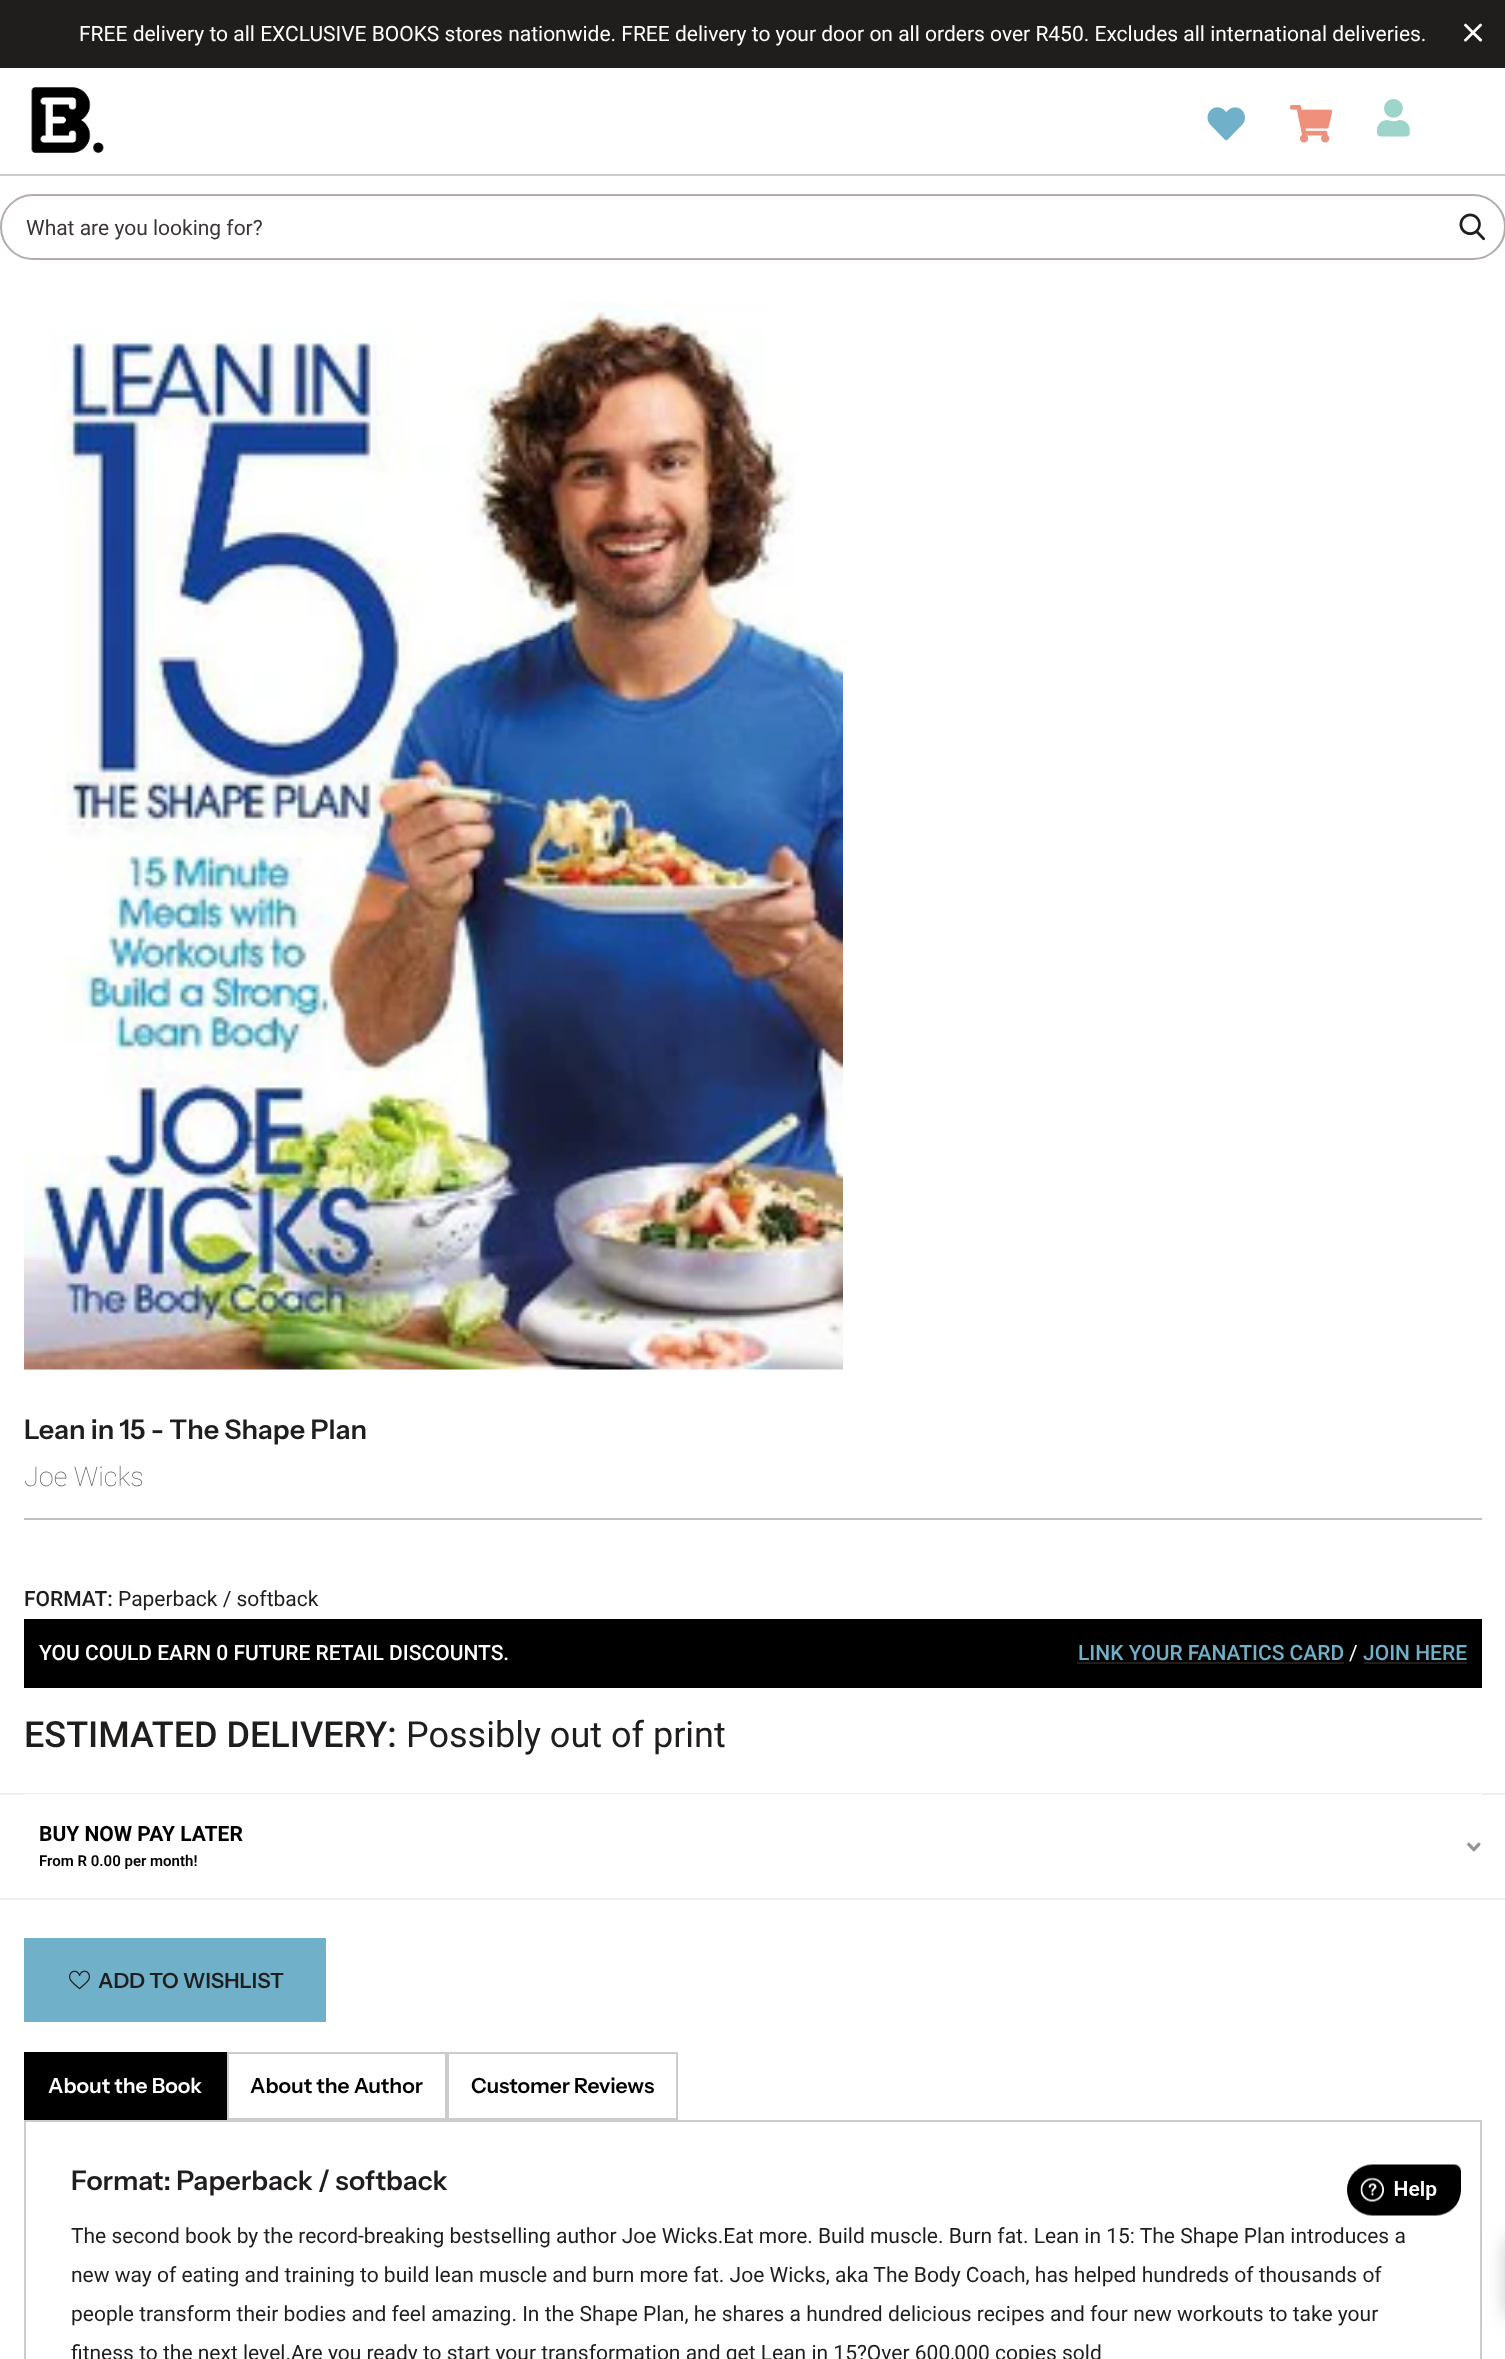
<!DOCTYPE html>
<meta charset="utf-8">
<style>body { margin: 0 } canvas { display: block }</style>
<canvas id="canvas" width="1505" height="2359"></canvas>
<script type="module">
  const canvas = document.getElementById("canvas");
  const g = canvas.getContext("2d");
  g.miterLimit = 4;
  g.fontKerning = "normal";
  function drawText(s, x, y, [font, color]) {
    g.font = font;
    g.fillStyle = color;
    g.fillText(s, x, y);
  }
  function fillBox(x, y, w, h, color) {
    g.fillStyle = color;
    g.fillRect(x, y, w, h);
  }
  async function drawPicture(src, x, y, w, h) {
    const img = new Image();
    img.src = src;
    await img.decode();
    g.drawImage(img, x, y, w, h);
  }

  const s1 = ["21px Roboto", "#FFFFFF"];
  const s2 = ["21px Roboto", "#3B3535"];
  const s3 = ["600 27px Instrument Sans", "#201D1D"];
  const s4 = ["100 27px Roboto", "#606060"];
  const s5 = ["500 21px Roboto", "#201D1D"];
  const s6 = ["21px Roboto", "#201D1D"];
  const s7 = ["500 21px Roboto", "#FFFFFF"];
  const s8 = ["500 21px Roboto", "#70B0C9"];
  const s9 = ["500 36px Roboto", "#201D1D"];
  const s10 = ["36px Roboto", "#201D1D"];
  const s11 = ["bold 21px Roboto", "#000000"];
  const s12 = ["600 15px Roboto", "#000000"];
  const s13 = ["600 21px Instrument Sans", "#201D1D"];
  const s14 = ["600 21px Instrument Sans", "#FFFFFF"];
  const s15 = ["600 21px Instrument Sans", "#000000"];

  fillBox(0, 0, 1505, 2359, "#FFFFFF");
  fillBox(0, 0, 1505, 68, "#201D1D");
  drawText("FREE delivery to all EXCLUSIVE BOOKS stores nationwide. FREE delivery to your door on all orders over R450. Excludes all international deliveries.", 79, 41, s1);
  await drawPicture("pic1.png", 1464, 23, 19, 19);
  fillBox(0, 174, 1505, 2, "#CCCCCC");
  await drawPicture("pic2.png", 31, 87, 73, 66);
  await drawPicture("pic3.png", 1207, 107, 38, 34);
  await drawPicture("pic4.png", 1290, 105, 43, 38);
  await drawPicture("pic5.png", 1377, 99, 33, 38);
  g.beginPath();
  g.roundRect(1, 195, 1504, 64, 32);
  g.strokeStyle = "#B4ACAC";
  g.lineWidth = 2;
  g.stroke();
  drawText("What are you looking for?", 26, 235, s2);
  await drawPicture("pic6.png", 1459, 213, 26, 28);
  await drawPicture("pic7.png", 24, 301, 819, 1069);
  drawText("Lean in 15 - The Shape Plan", 24, 1439, s3);
  fillBox(24, 1518, 1458, 2, "#C0C0C0");
  drawText("Joe Wicks", 24, 1486, s4);
  drawText("FORMAT:", 24, 1606, s5);
  drawText("Paperback / softback", 118, 1606, s6);
  fillBox(24, 1619, 1458, 69, "#000000");
  drawText("YOU COULD EARN 0 FUTURE RETAIL DISCOUNTS.", 39, 1660, s7);
  drawText("LINK YOUR FANATICS CARD", 1078, 1660, s8);
  fillBox(1077, 1662, 267, 2, "#201D1D");
  drawText("/", 1349, 1660, s1);
  drawText("JOIN HERE", 1363, 1660, s8);
  fillBox(1364, 1662, 103, 2, "#201D1D");
  drawText("ESTIMATED DELIVERY:", 24, 1747, s9);
  drawText("Possibly out of print", 406, 1747, s10);
  fillBox(0, 1793, 1505, 2, "#EFEFEF");
  fillBox(0, 1898, 1505, 2, "#EFEFEF");
  fillBox(24, 1794, 1458, 1, "#FFFFFF");
  drawText("BUY NOW PAY LATER", 39, 1841, s11);
  drawText("From R 0.00 per month!", 39, 1866, s12);
  await drawPicture("pic8.png", 1467, 1842, 14, 10);
  fillBox(24, 1938, 302, 84, "#70B0C9");
  await drawPicture("pic9.png", 69, 1970, 21, 20);
  drawText("ADD TO WISHLIST", 98, 1988, s13);
  fillBox(24, 2052, 203, 68, "#000000");
  drawText("About the Book", 48, 2093, s14);
  g.strokeStyle = "#CCCCCC";
  g.strokeRect(228, 2053, 218, 66);
  drawText("About the Author", 250, 2093, s15);
  g.strokeRect(448, 2053, 229, 66);
  drawText("Customer Reviews", 471, 2093, s15);
  g.strokeRect(25, 2121, 1456, 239);
  drawText("Format: Paperback / softback", 71, 2190, s3);
  drawText("The second book by the record-breaking bestselling author Joe Wicks.Eat more. Build muscle. Burn fat. Lean in 15: The Shape Plan introduces a", 71, 2243, s6);
  drawText("new way of eating and training to build lean muscle and burn more fat. Joe Wicks, aka The Body Coach, has helped hundreds of thousands of", 71, 2282, s6);
  drawText("people transform their bodies and feel amazing. In the Shape Plan, he shares a hundred delicious recipes and four new workouts to take your", 71, 2321, s6);
  drawText("fitness to the next level.Are you ready to start your transformation and get Lean in 15?Over 600,000 copies sold", 71, 2360, s6);
  await drawPicture("pic10.png", 1347, 2164, 114, 52);
  g.fillStyle = "rgba(117, 117, 117, 0.5)";
  g.filter = "blur(10.5px)";
  g.beginPath();
  g.rect(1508, 2240, 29, 75);
  g.fill();
  g.filter = "none";
</script>
